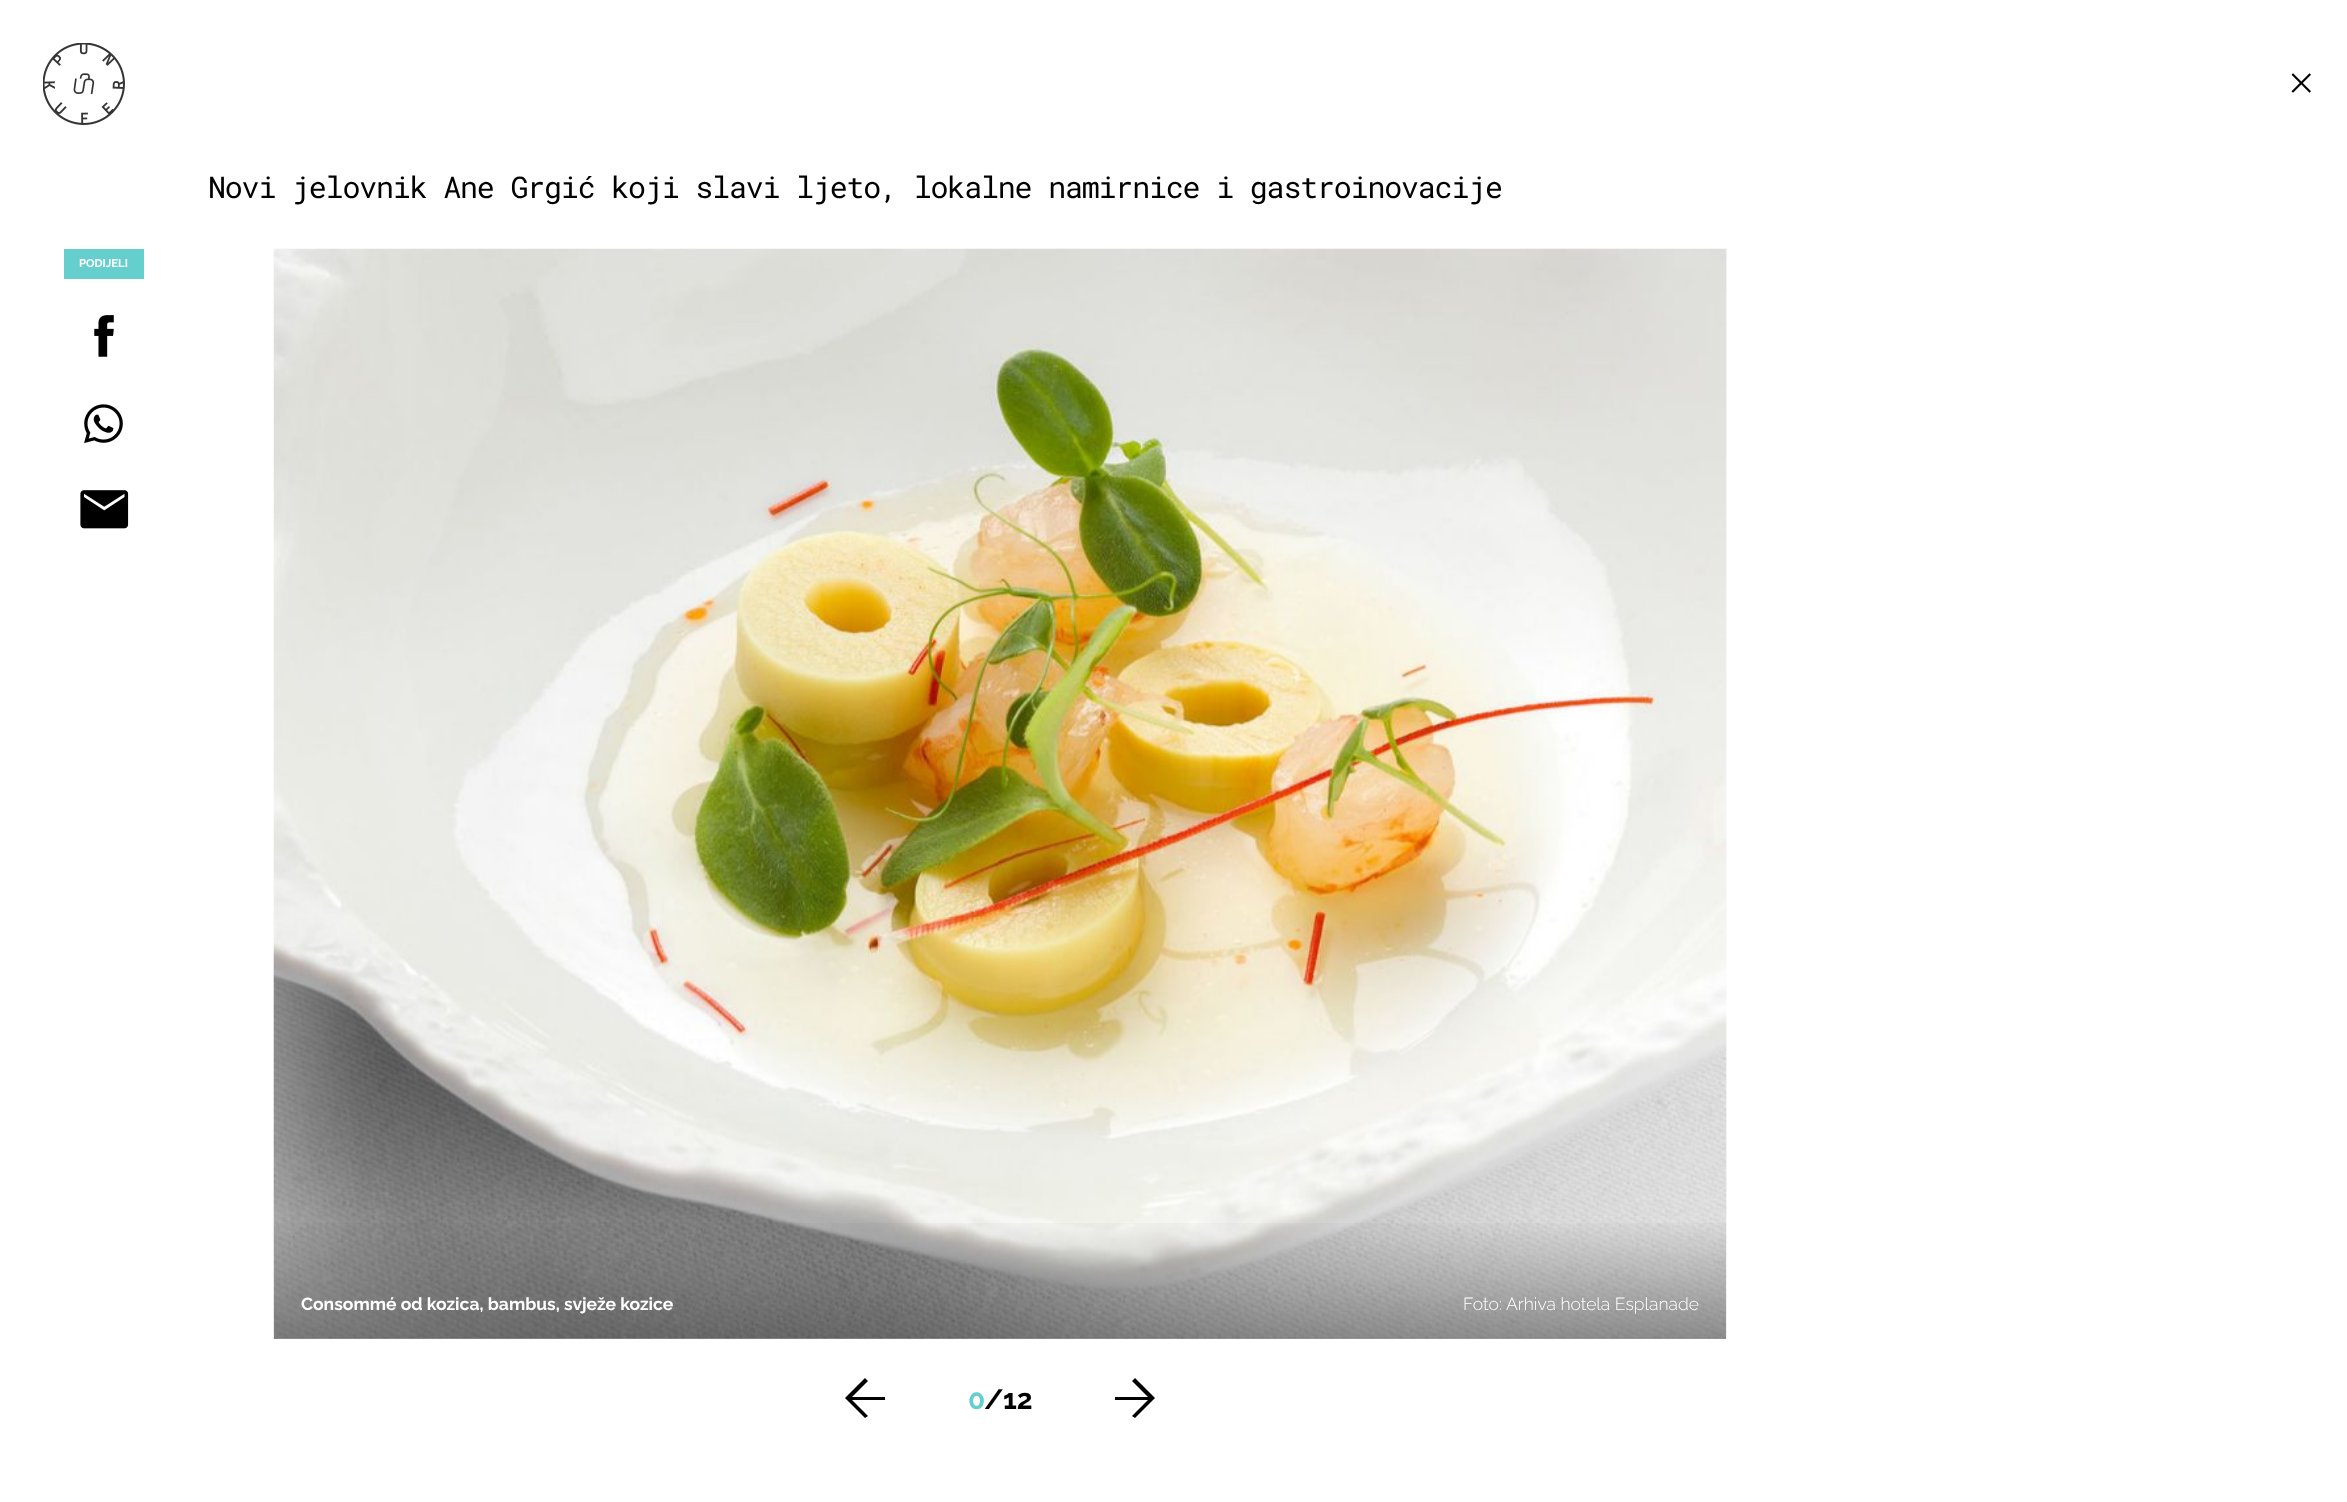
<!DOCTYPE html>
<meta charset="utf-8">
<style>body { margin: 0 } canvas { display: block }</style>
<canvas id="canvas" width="2347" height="1502"></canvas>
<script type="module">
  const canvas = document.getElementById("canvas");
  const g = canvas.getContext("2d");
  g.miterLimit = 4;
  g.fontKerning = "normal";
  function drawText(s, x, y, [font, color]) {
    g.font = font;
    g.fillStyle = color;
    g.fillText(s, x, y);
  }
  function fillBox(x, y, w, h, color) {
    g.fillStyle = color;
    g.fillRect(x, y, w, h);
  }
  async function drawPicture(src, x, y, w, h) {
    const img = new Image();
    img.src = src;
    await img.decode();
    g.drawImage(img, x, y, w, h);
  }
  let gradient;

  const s1 = ["30px Roboto Mono", "#000000"];
  const s2 = ["bold 11.25px Raleway", "#FFFFFF"];
  const s3 = ["bold 17.5px Raleway", "#FFFFFF"];
  const s4 = ["300 17.5px Raleway", "#FFFFFF"];
  const s5 = ["bold 28px Raleway", "#64CFCC"];
  const s6 = ["bold 28px Raleway", "#000000"];

  fillBox(0, 0, 2347, 1502, "#FFFFFF");
  await drawPicture("pic1.png", 43, 43, 82, 82);
  await drawPicture("pic2.png", 2291, 73, 20, 20);
  g.letterSpacing = "-1.2px";
  drawText("Novi jelovnik Ane Grgić koji slavi ljeto, lokalne namirnice i gastroinovacije", 208, 198, s1);
  fillBox(64, 249, 80, 30, "#64CFCC");
  g.letterSpacing = "0px";
  drawText("PODIJELI", 79, 267, s2);
  await drawPicture("pic3.png", 94, 315, 20, 42);
  await drawPicture("pic4.png", 84, 404, 39, 39);
  await drawPicture("pic5.png", 80, 490, 49, 39);
  await drawPicture("pic6.png", 273, 248, 1454, 1091);
  gradient = g.createLinearGradient(1000, 1339, 1000, 1216);
  gradient.addColorStop(0, "rgba(20, 20, 20, 0.4)");
  gradient.addColorStop(1, "rgba(20, 20, 20, 0)");
  g.fillStyle = gradient;
  g.fillRect(274, 1223, 1452, 116);
  drawText("Consommé od kozica, bambus, svježe kozice", 301, 1310, s3);
  drawText("Foto:", 1463, 1310, s4);
  drawText("Arhiva hotela Esplanade", 1506, 1310, s4);
  g.fillStyle = "#000000";
  g.beginPath();
  g.moveTo(865, 1418);
  g.lineTo(868, 1416);
  g.lineTo(852, 1400);
  g.lineTo(885, 1400);
  g.lineTo(885, 1397);
  g.lineTo(852, 1397);
  g.lineTo(868, 1381);
  g.lineTo(865, 1378);
  g.lineTo(845, 1398);
  g.closePath();
  g.fill();
  drawText("0", 968, 1409, s5);
  drawText("/", 984, 1409, s6);
  drawText("12", 1003, 1409, s6);
  g.beginPath();
  g.moveTo(1135, 1418);
  g.lineTo(1132, 1416);
  g.lineTo(1148, 1400);
  g.lineTo(1115, 1400);
  g.lineTo(1115, 1397);
  g.lineTo(1148, 1397);
  g.lineTo(1132, 1381);
  g.lineTo(1135, 1378);
  g.lineTo(1155, 1398);
  g.closePath();
  g.fill();
</script>
